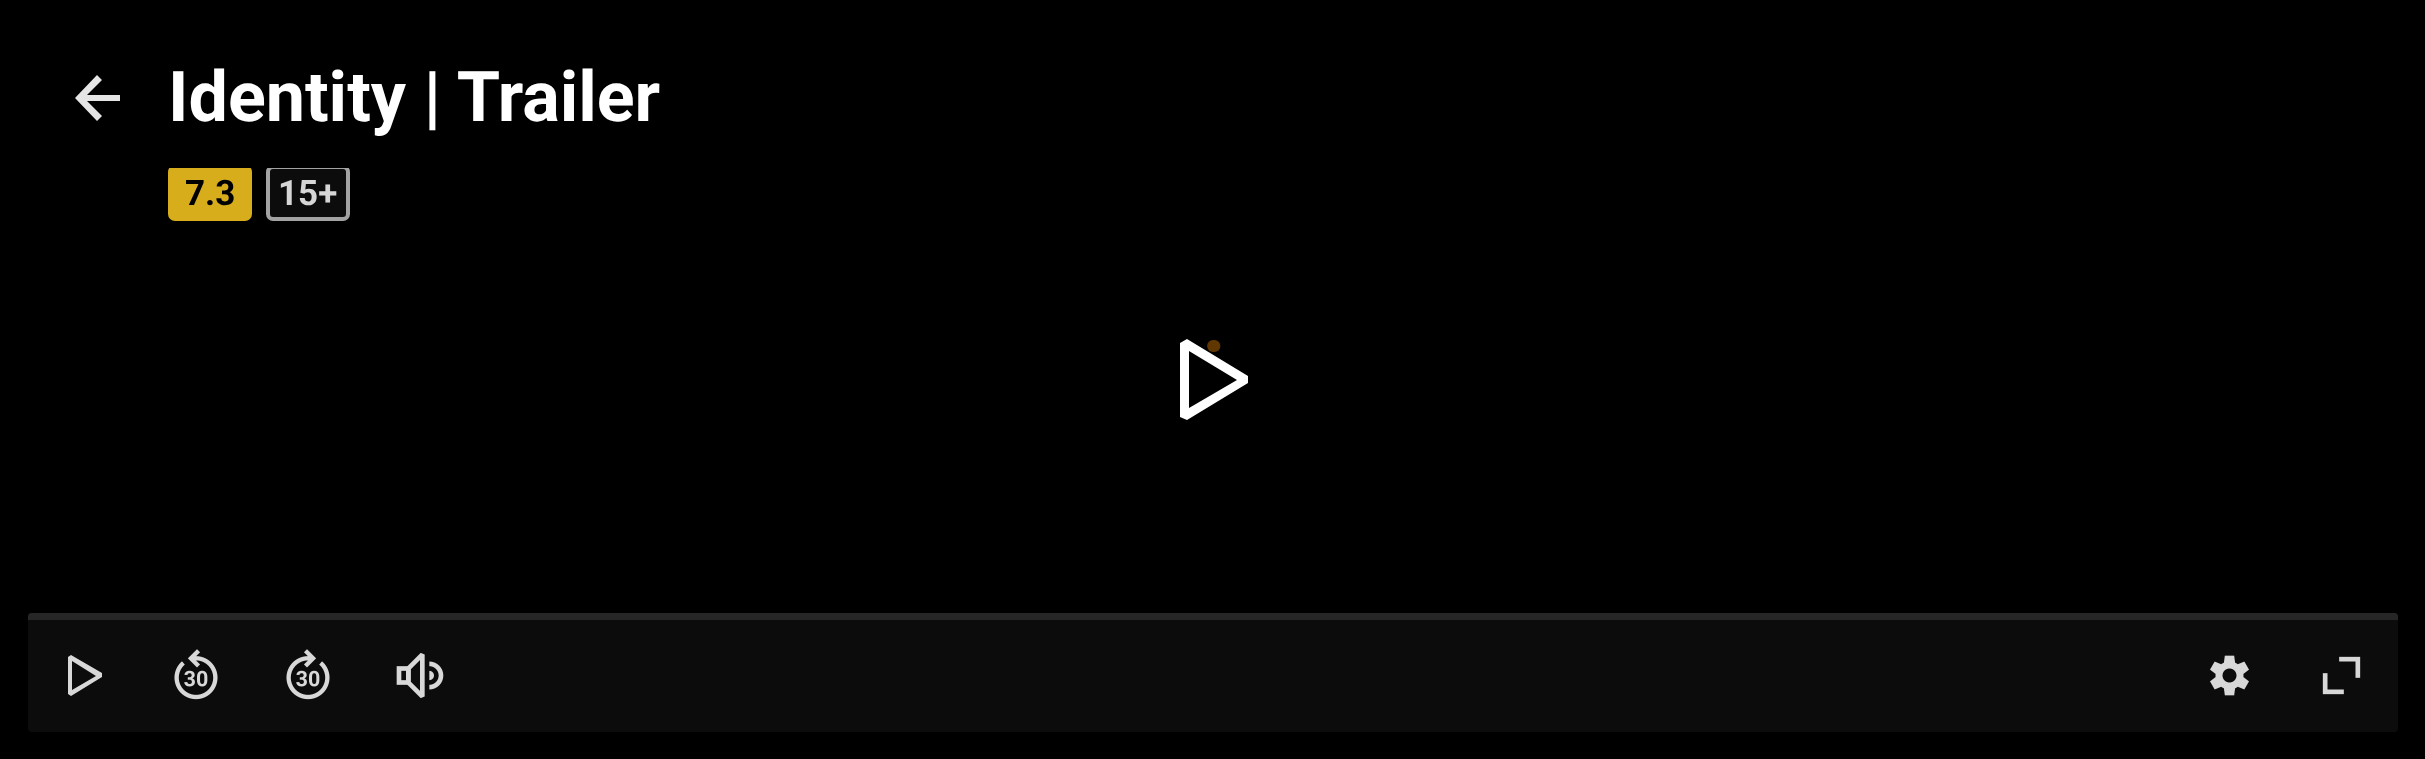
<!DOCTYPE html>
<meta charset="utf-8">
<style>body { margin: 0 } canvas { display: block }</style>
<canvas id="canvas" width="2425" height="759"></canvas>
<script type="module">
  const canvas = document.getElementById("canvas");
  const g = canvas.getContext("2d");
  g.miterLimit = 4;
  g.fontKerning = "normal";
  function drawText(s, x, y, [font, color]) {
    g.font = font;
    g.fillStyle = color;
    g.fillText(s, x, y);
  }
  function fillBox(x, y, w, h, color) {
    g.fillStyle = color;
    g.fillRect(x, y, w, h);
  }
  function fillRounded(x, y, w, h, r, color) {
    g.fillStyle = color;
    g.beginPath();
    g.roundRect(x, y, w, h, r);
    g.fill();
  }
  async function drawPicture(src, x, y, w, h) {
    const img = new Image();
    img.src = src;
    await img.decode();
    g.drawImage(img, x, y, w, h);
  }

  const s1 = ["bold 70px Roboto", "#FFFFFF"];
  const s2 = ["bold 35px Roboto", "#000000"];
  const s3 = ["bold 35px Roboto", "#D6D6D6"];

  fillBox(0, 0, 2425, 759, "#000000");
  fillBox(80, 95, 40, 6, "#E5E5E5");
  g.beginPath();
  g.moveTo(84, 98);
  g.lineTo(102, 116);
  g.lineTo(97, 121);
  g.lineTo(75, 98);
  g.lineTo(97, 75);
  g.lineTo(102, 80);
  g.closePath();
  g.fill();
  drawText("Identity | Trailer", 168, 121, s1);
  g.save();
  g.beginPath();
  g.rect(56, 168, 294, 56);
  g.clip();
  g.fillStyle = "#D7AD1C";
  g.beginPath();
  g.roundRect(170, 167, 80, 52, 5);
  g.fill();
  g.strokeStyle = "#D7AD1C";
  g.lineWidth = 4;
  g.stroke();
  g.restore();
  drawText("7.3", 185, 205, s2);
  g.save();
  g.beginPath();
  g.rect(56, 168, 294, 56);
  g.clip();
  fillRounded(266, 165, 84, 56, 7, "#0C0C0C");
  g.beginPath();
  g.roundRect(268, 167, 80, 52, 5);
  g.strokeStyle = "rgba(214, 214, 214, 0.75)";
  g.lineWidth = 4;
  g.stroke();
  g.restore();
  drawText("15+", 278, 205, s3);
  g.beginPath();
  g.moveTo(1213, 346);
  g.lineTo(1214.5, 346);
  g.strokeStyle = "#F18900";
  g.lineWidth = 11.8;
  g.lineCap = "round";
  g.stroke();
  g.fillStyle = "rgba(0, 0, 0, 0.6)";
  g.beginPath();
  g.arc(1213, 380, 112, 0, Math.PI * 2);
  g.fill();
  g.fillStyle = "#FFFFFF";
  g.beginPath();
  g.moveTo(1187, 420);
  g.lineTo(1180, 417);
  g.lineTo(1180, 343);
  g.lineTo(1187, 339);
  g.lineTo(1248, 376);
  g.lineTo(1248, 383);
  g.closePath();
  g.moveTo(1189, 351);
  g.lineTo(1189, 408);
  g.lineTo(1237, 380);
  g.closePath();
  g.fill();
  g.fillStyle = "#262626";
  g.beginPath();
  g.roundRect(28, 613, 2370, 7, [3.5, 3.5, 0, 0]);
  g.fill();
  g.fillStyle = "#0C0C0C";
  g.beginPath();
  g.roundRect(28, 620, 2370, 112, [0, 0, 4, 4]);
  g.fill();
  g.fillStyle = "#D8D8D8";
  g.beginPath();
  g.moveTo(71, 696);
  g.lineTo(68, 694);
  g.lineTo(68, 657);
  g.lineTo(71, 655);
  g.lineTo(102, 673);
  g.lineTo(102, 677);
  g.closePath();
  g.moveTo(72, 661);
  g.lineTo(72, 690);
  g.lineTo(96, 676);
  g.closePath();
  g.fill();
  await drawPicture("pic1.png", 174, 649, 44, 51);
  await drawPicture("pic2.png", 286, 649, 44, 51);
  await drawPicture("pic3.png", 396, 652, 48, 47);
  await drawPicture("pic4.png", 2210, 655, 39, 41);
  await drawPicture("pic5.png", 2322, 656, 39, 39);
</script>
